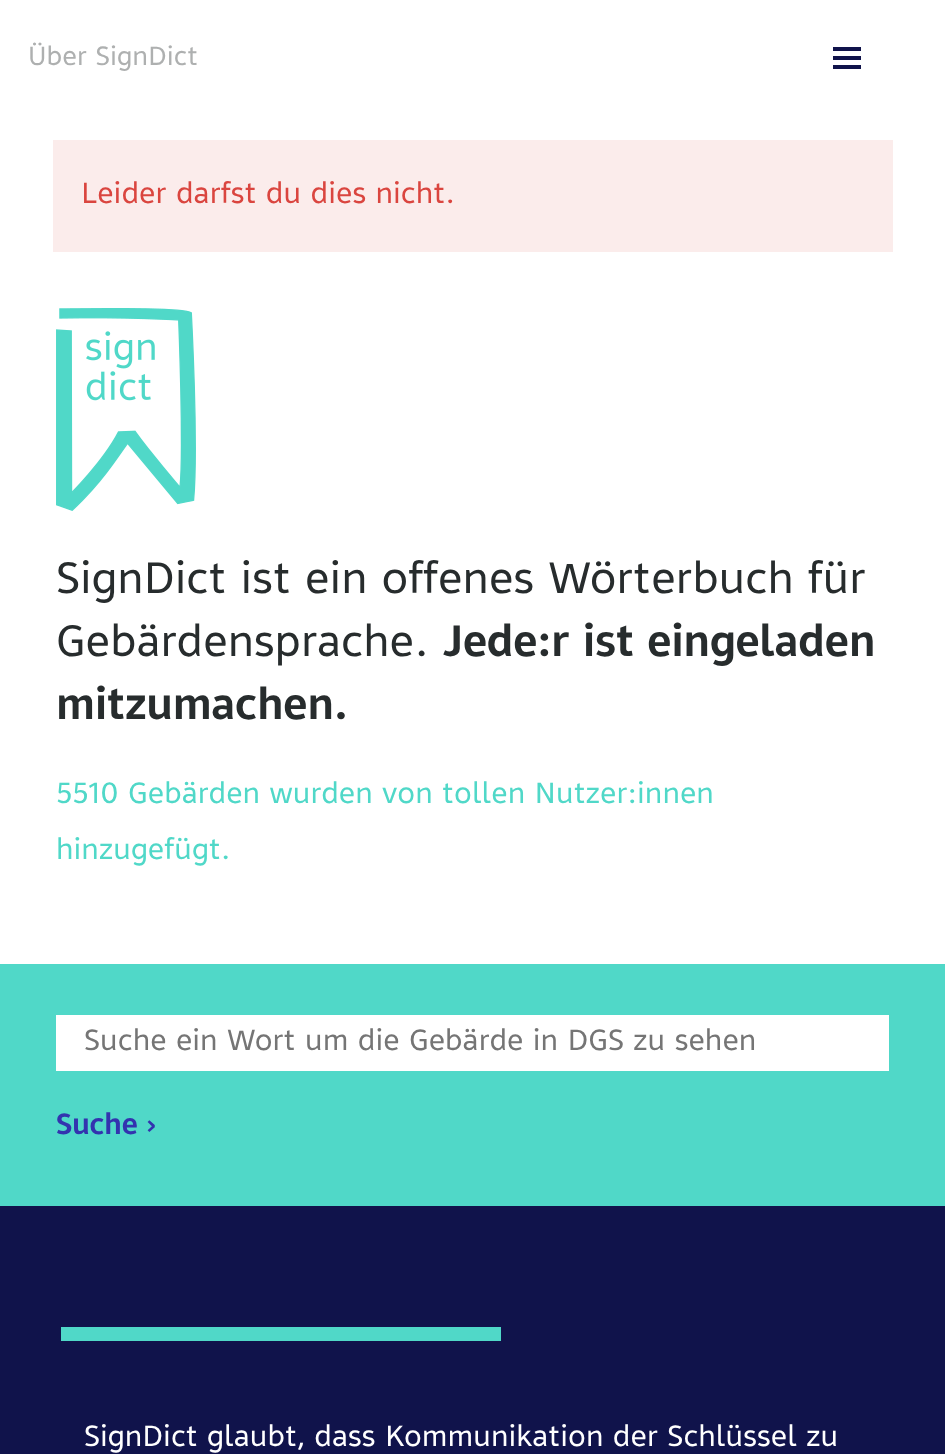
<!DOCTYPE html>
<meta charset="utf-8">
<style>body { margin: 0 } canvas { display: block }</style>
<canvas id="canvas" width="945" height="1454"></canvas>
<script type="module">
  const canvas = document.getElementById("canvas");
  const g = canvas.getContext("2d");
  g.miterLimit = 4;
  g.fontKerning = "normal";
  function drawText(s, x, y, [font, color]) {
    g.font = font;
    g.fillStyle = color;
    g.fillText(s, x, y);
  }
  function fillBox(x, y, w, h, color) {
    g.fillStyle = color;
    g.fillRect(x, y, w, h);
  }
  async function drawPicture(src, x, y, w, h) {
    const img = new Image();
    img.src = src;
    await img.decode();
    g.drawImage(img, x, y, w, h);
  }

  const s1 = ["25.25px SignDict", "#AEB0B0"];
  const s2 = ["28px SignDict", "#DA453F"];
  const s3 = ["42px SignDict", "#272C2D"];
  const s4 = ["bold 42px SignDict", "#272C2D"];
  const s5 = ["28px SignDict", "#50D8C8"];
  const s6 = ["28px SignDict", "#757575"];
  const s7 = ["bold 28px SignDict", "#3333AF"];
  const s8 = ["28px SignDict", "#FFFFFF"];

  fillBox(0, 0, 945, 1454, "#FFFFFF");
  drawText("Über SignDict", 28, 65, s1);
  fillBox(833, 56, 28, 4, "#10134B");
  fillBox(833, 47, 28, 4, "#10134B");
  fillBox(833, 65, 28, 4, "#10134B");
  fillBox(53, 140, 840, 112, "#FBECEB");
  drawText("Leider darfst du dies nicht.", 81, 203, s2);
  await drawPicture("pic1.png", 56, 308, 140, 203);
  drawText("SignDict ist ein offenes Wörterbuch für", 56, 593, s3);
  drawText("Gebärdensprache.", 56, 656, s3);
  drawText("Jede:r ist eingeladen", 443, 656, s4);
  drawText("mitzumachen.", 56, 719, s4);
  drawText("5510 Gebärden wurden von tollen Nutzer:innen", 56, 803, s5);
  drawText("hinzugefügt.", 56, 859, s5);
  fillBox(0, 964, 945, 242, "#50D8C8");
  fillBox(56, 1015, 833, 56, "#FFFFFF");
  drawText("Suche ein Wort um die Gebärde in DGS zu sehen", 84, 1050, s6);
  drawText("Suche ›", 56, 1134, s7);
  fillBox(0, 1206, 945, 248, "#10134B");
  fillBox(61, 1327, 440, 14, "#50D8C8");
  drawText("SignDict glaubt, dass Kommunikation der Schlüssel zu", 84, 1446, s8);
</script>
